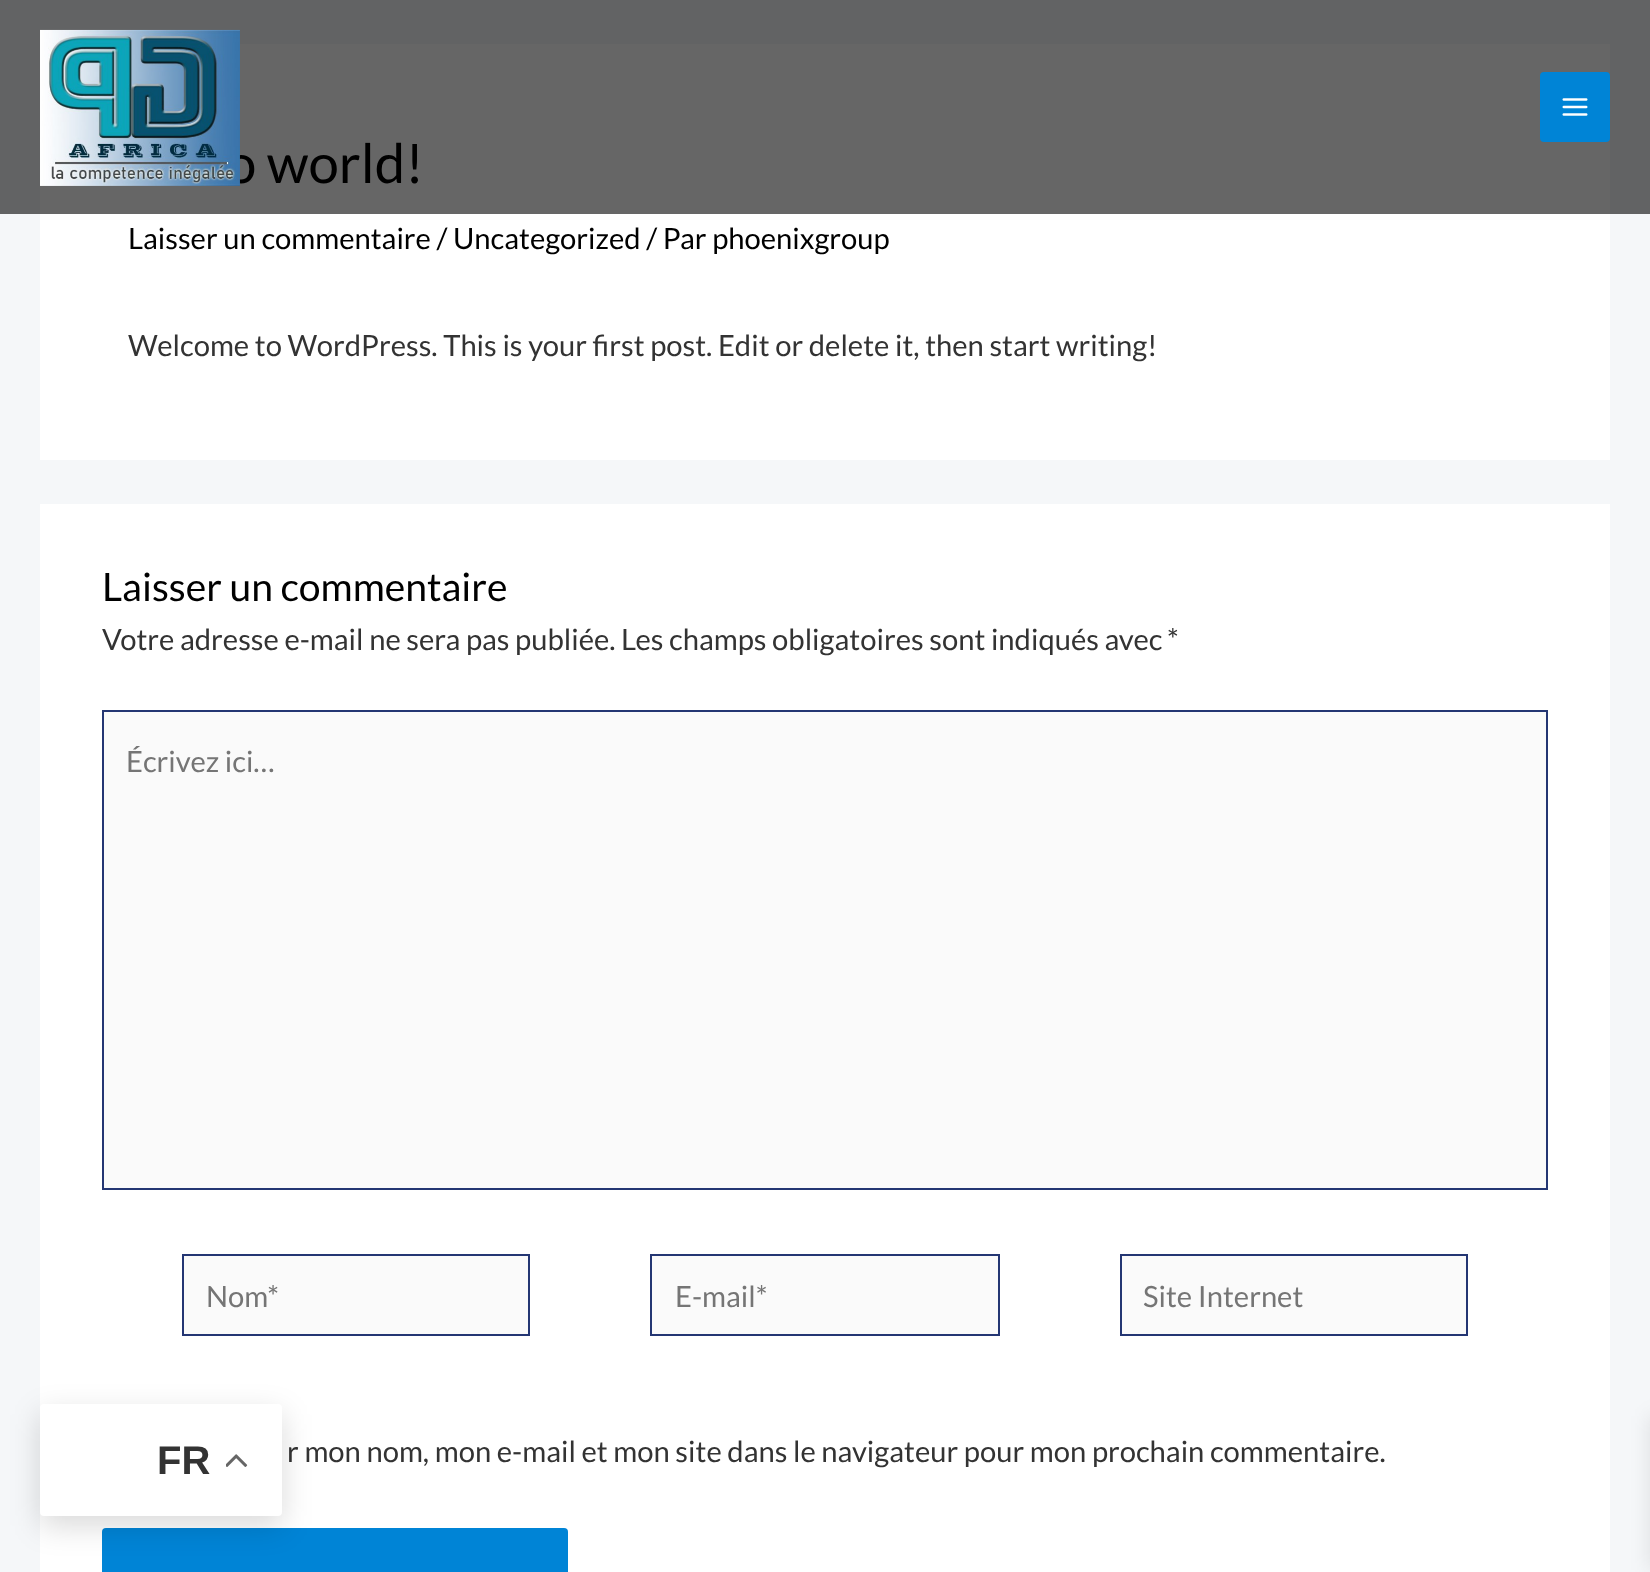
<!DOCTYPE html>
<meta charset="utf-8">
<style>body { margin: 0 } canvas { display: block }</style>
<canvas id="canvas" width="1650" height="1572"></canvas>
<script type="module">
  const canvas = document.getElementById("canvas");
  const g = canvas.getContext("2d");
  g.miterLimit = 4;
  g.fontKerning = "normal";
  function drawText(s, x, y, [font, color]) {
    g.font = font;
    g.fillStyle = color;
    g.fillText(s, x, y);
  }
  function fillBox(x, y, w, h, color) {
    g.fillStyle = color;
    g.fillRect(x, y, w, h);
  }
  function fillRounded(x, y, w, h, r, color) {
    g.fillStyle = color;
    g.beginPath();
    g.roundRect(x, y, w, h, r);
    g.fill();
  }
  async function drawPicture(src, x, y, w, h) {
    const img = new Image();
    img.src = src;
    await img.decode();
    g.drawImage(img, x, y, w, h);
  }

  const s1 = ["54.5px Lato", "#000000"];
  const s2 = ["29.2px Lato", "#000000"];
  const s3 = ["29.2px Lato", "#333333"];
  const s4 = ["39.1px Lato", "#000000"];
  const s5 = ["29.2px Lato", "#757575"];
  const s6 = ["bold 40px Liberation Sans", "#333333"];

  fillBox(0, 0, 1650, 1572, "#F5F7F9");
  fillBox(0, 0, 1650, 214, "#626364");
  fillBox(40, 44, 1570, 170, "#666666");
  drawText("o world!", 226, 183, s1);
  await drawPicture("pic1.png", 40, 29, 200, 157);
  fillRounded(1540, 72, 70, 70, 4, "#0084D6");
  await drawPicture("pic2.png", 1562, 98, 26, 18);
  fillBox(40, 214, 1570, 246, "#FFFFFF");
  drawText("Laisser un commentaire / Uncategorized / Par phoenixgroup", 128, 249, s2);
  drawText("Welcome to WordPress. This is your first post. Edit or delete it, then start writing!", 128, 356, s3);
  fillBox(40, 504, 1570, 1068, "#FFFFFF");
  drawText("Laisser un commentaire", 102, 601, s4);
  drawText("Votre adresse e-mail ne sera pas publiée.", 102, 650, s3);
  drawText("Les champs obligatoires sont indiqués avec", 621, 650, s3);
  drawText("*", 1167, 650, s3);
  g.fillStyle = "#FAFAFA";
  g.beginPath();
  g.rect(103, 711, 1444, 478);
  g.fill();
  g.strokeStyle = "#243673";
  g.lineWidth = 2;
  g.stroke();
  drawText("Écrivez ici…", 126, 772, s5);
  g.fillStyle = "#FAFAFA";
  g.beginPath();
  g.rect(183, 1255, 346, 80);
  g.fill();
  g.stroke();
  drawText("Nom*", 206, 1307, s5);
  g.fillStyle = "#FAFAFA";
  g.beginPath();
  g.rect(651, 1255, 348, 80);
  g.fill();
  g.stroke();
  drawText("E-mail*", 675, 1307, s5);
  g.fillStyle = "#FAFAFA";
  g.beginPath();
  g.rect(1121, 1255, 346, 80);
  g.fill();
  g.stroke();
  drawText("Site Internet", 1143, 1307, s5);
  drawText("r mon nom, mon e-mail et mon site dans le navigateur pour mon prochain commentaire.", 287, 1462, s3);
  fillRounded(102, 1528, 466, 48, 4, "#0084D6");
  g.fillStyle = "rgba(0, 0, 0, 0.1)";
  g.filter = "blur(10px)";
  g.beginPath();
  g.rect(1650, 1416, 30, 154);
  g.fill();
  g.filter = "none";
  g.fillStyle = "rgba(0, 0, 0, 0.15)";
  g.filter = "blur(15px)";
  g.beginPath();
  g.roundRect(40, 1414, 242, 112, 4);
  g.fill();
  g.filter = "none";
  fillRounded(40, 1404, 242, 112, 4, "#FFFFFF");
  drawText("FR", 157, 1474, s6);
  await drawPicture("pic3.png", 226, 1454, 22, 13);
</script>
